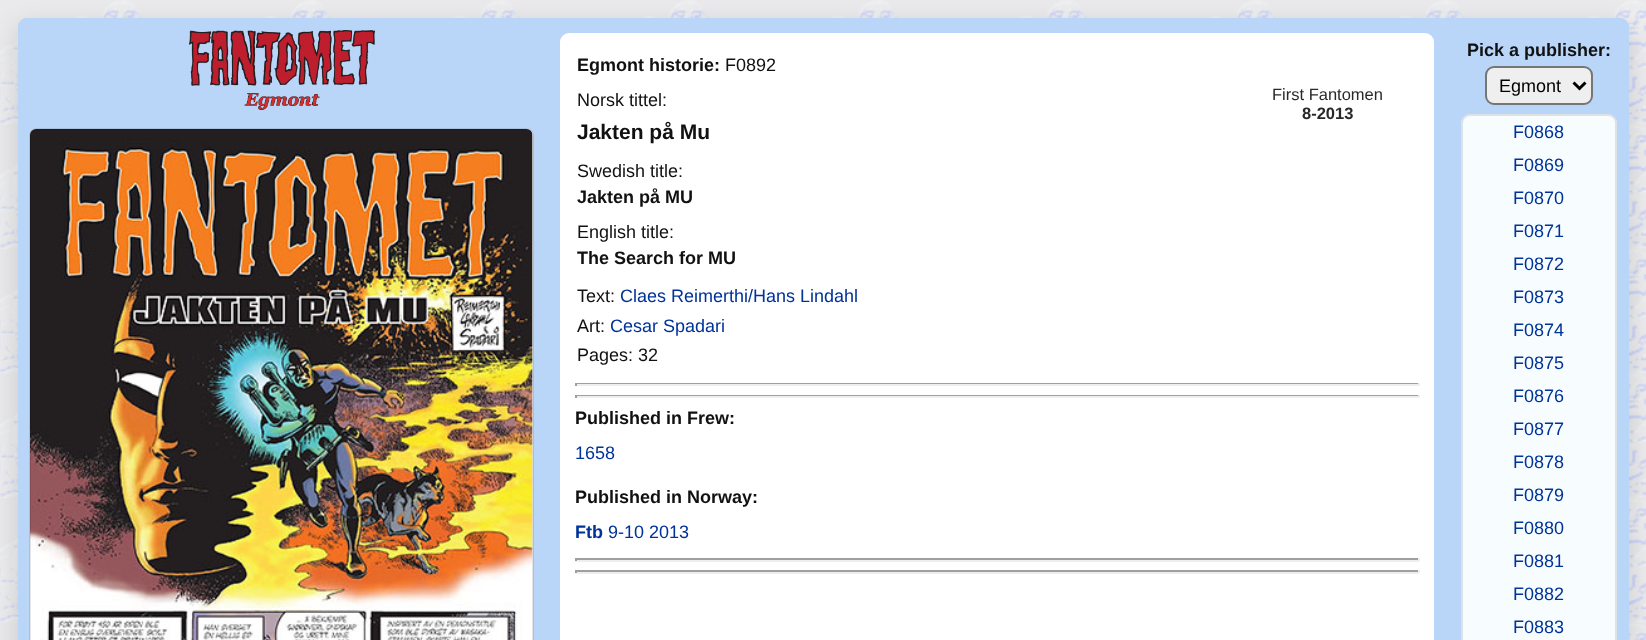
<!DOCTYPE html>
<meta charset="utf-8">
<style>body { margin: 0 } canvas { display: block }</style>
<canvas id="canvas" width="1646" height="640"></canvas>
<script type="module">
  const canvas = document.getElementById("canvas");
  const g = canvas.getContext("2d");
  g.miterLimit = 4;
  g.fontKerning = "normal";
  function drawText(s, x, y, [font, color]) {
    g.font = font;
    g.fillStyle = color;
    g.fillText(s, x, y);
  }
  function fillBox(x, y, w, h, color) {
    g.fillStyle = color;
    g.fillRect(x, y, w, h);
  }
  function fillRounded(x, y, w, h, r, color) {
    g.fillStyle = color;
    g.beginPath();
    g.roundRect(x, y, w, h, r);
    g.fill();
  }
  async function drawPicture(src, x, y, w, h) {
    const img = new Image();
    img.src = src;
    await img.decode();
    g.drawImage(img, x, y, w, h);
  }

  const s1 = ["bold 18px Liberation Sans", "#111111"];
  const s2 = ["18px Liberation Sans", "#111111"];
  const s3 = ["bold 21px Liberation Sans", "#111111"];
  const s4 = ["18px Liberation Sans", "#003399"];
  const s5 = ["16.5px Liberation Sans", "#292929"];
  const s6 = ["bold 16.5px Liberation Sans", "#292929"];
  const s7 = ["bold 18px Liberation Sans", "#003399"];
  const s8 = ["18px Liberation Sans", "#000000"];

  fillBox(0, 0, 1646, 640, "#FFFFFF");
  await drawPicture("pic1.png", 0, 0, 1646, 640);
  g.fillStyle = "rgba(0, 0, 0, 0.15)";
  g.filter = "blur(13.5px)";
  g.beginPath();
  g.roundRect(18, 27, 1611, 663, 9);
  g.fill();
  g.filter = "none";
  fillRounded(18, 18, 1611, 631, 9, "#B9D6F9");
  g.beginPath();
  g.moveTo(27, 18);
  g.lineTo(545, 18);
  g.lineTo(545, 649);
  g.lineTo(18, 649);
  g.lineTo(18, 27);
  g.bezierCurveTo(18, 22, 22, 18, 27, 18);
  g.closePath();
  g.fill();
  await drawPicture("pic2.png", 189, 30, 186, 80);
  fillRounded(30, 129, 503, 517, 6, "#FFFFFF");
  await drawPicture("pic3.png", 30, 129, 503, 511);
  g.beginPath();
  g.roundRect(30, 129, 503, 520, 7);
  g.strokeStyle = "rgba(0, 0, 0, 0.1)";
  g.lineWidth = 2;
  g.stroke();
  fillRounded(560, 33, 874, 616, 9, "#FFFFFF");
  drawText("Egmont historie:", 577, 71, s1);
  drawText("F0892", 725, 71, s2);
  drawText("Norsk tittel:", 577, 106, s2);
  drawText("Jakten på Mu", 577, 139, s3);
  drawText("Swedish title:", 577, 177, s2);
  drawText("Jakten på MU", 577, 203, s1);
  drawText("English title:", 577, 238, s2);
  drawText("The Search for MU", 577, 264, s1);
  drawText("Text:", 577, 302, s2);
  drawText("Claes Reimerthi/Hans Lindahl", 620, 302, s4);
  drawText("Art:", 577, 332, s2);
  drawText("Cesar Spadari", 610, 332, s4);
  drawText("Pages: 32", 577, 361, s2);
  drawText("First Fantomen", 1272, 100, s5);
  drawText("8-2013", 1302, 119, s6);
  fillBox(575, 383, 844, 1, "#9F9F9F");
  fillBox(1418, 383, 2, 3, "#EEEEEE");
  fillBox(575, 384, 844, 2, "#EEEEEE");
  fillBox(575, 383, 2, 3, "#9F9F9F");
  fillBox(575, 395, 844, 1, "#9F9F9F");
  fillBox(1418, 395, 2, 3, "#EEEEEE");
  fillBox(575, 396, 844, 2, "#EEEEEE");
  fillBox(575, 395, 2, 3, "#9F9F9F");
  drawText("Published in Frew:", 575, 424, s1);
  drawText("1658", 575, 459, s4);
  drawText("Published in Norway:", 575, 503, s1);
  drawText("Ftb", 575, 538, s7);
  drawText("9-10 2013", 608, 538, s4);
  fillBox(575, 558, 844, 2, "#9F9F9F");
  fillBox(1418, 558, 2, 3, "#EEEEEE");
  fillBox(575, 560, 844, 2, "#EEEEEE");
  fillBox(575, 558, 2, 3, "#9F9F9F");
  fillBox(575, 570, 844, 2, "#9F9F9F");
  fillBox(1418, 570, 2, 3, "#EEEEEE");
  fillBox(575, 572, 844, 2, "#EEEEEE");
  fillBox(575, 570, 2, 3, "#9F9F9F");
  g.fillStyle = "#B9D6F9";
  g.beginPath();
  g.moveTo(1449, 18);
  g.lineTo(1620, 18);
  g.bezierCurveTo(1625, 18, 1629, 22, 1629, 27);
  g.lineTo(1629, 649);
  g.lineTo(1449, 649);
  g.closePath();
  g.fill();
  drawText("Pick a publisher:", 1467, 56, s1);
  g.fillStyle = "#EFEFEF";
  g.beginPath();
  g.roundRect(1486, 67, 106, 37, 8);
  g.fill();
  g.strokeStyle = "#767676";
  g.stroke();
  g.beginPath();
  g.moveTo(1573.5, 82.5);
  g.lineTo(1579.5, 88.5);
  g.lineTo(1585.5, 82.5);
  g.strokeStyle = "#000000";
  g.lineWidth = 3;
  g.stroke();
  drawText("Egmont", 1499, 92, s8);
  fillRounded(1461, 114, 156, 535, 9, "#F7FDFF");
  g.beginPath();
  g.roundRect(1462, 115, 154, 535, 8);
  g.strokeStyle = "rgba(0, 0, 0, 0.1)";
  g.lineWidth = 2;
  g.stroke();
  drawText("F0868", 1513, 138, s4);
  drawText("F0869", 1513, 171, s4);
  drawText("F0870", 1513, 204, s4);
  drawText("F0871", 1513, 237, s4);
  drawText("F0872", 1513, 270, s4);
  drawText("F0873", 1513, 303, s4);
  drawText("F0874", 1513, 336, s4);
  drawText("F0875", 1513, 369, s4);
  drawText("F0876", 1513, 402, s4);
  drawText("F0877", 1513, 435, s4);
  drawText("F0878", 1513, 468, s4);
  drawText("F0879", 1513, 501, s4);
  drawText("F0880", 1513, 534, s4);
  drawText("F0881", 1513, 567, s4);
  drawText("F0882", 1513, 600, s4);
  drawText("F0883", 1513, 633, s4);
</script>
